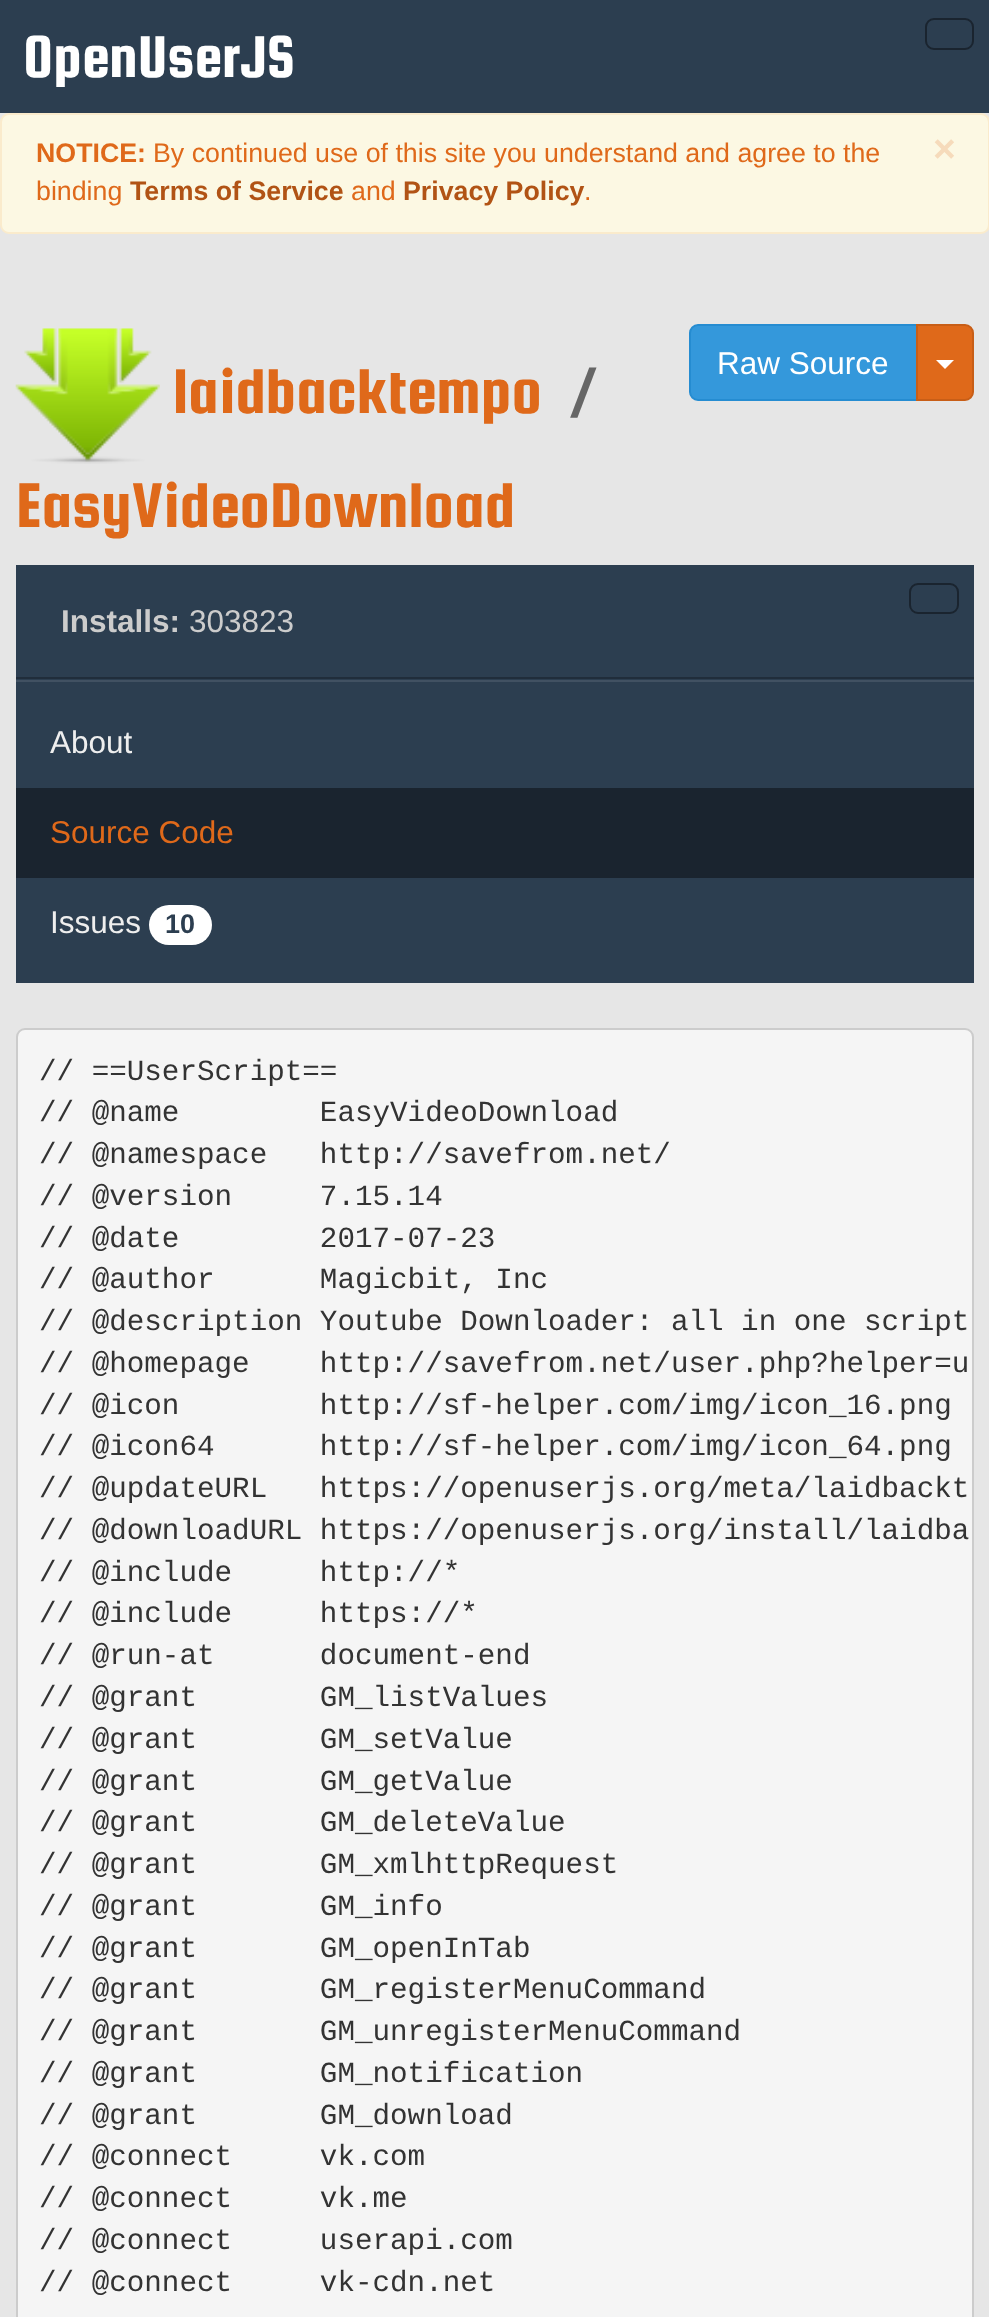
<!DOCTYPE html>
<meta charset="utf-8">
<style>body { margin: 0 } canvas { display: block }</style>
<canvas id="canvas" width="989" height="2317"></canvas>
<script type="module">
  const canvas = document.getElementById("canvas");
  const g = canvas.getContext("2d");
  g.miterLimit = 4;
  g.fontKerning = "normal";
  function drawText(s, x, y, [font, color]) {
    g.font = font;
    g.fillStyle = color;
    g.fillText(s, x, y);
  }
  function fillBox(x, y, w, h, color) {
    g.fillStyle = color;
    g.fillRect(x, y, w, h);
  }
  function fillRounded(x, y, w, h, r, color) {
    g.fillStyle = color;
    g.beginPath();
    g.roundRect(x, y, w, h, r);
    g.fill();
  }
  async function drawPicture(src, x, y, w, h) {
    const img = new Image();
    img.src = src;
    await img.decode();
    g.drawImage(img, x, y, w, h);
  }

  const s1 = ["63px Squada One", "#FFFFFF"];
  const s2 = ["bold 26.75px Liberation Sans", "#DF691A"];
  const s3 = ["26.75px Liberation Sans", "#DF691A"];
  const s4 = ["bold 26.75px Liberation Sans", "#B15315"];
  const s5 = ["bold 39px Liberation Sans", "#F6DBBB"];
  const s6 = ["31.5px Liberation Sans", "#FFFFFF"];
  const s7 = ["67.5px Squada One", "#DF691A"];
  const s8 = ["67.5px Squada One", "#666666"];
  const s9 = ["bold 31.5px Liberation Sans", "#CCCCCC"];
  const s10 = ["31.5px Liberation Sans", "#CCCCCC"];
  const s11 = ["31.5px Liberation Sans", "#EEEEEE"];
  const s12 = ["31.5px Liberation Sans", "#DF691A"];
  const s13 = ["bold 27px Liberation Sans", "#2C3E50"];
  const s14 = ["29.25px Liberation Mono", "#333333"];

  fillBox(0, 0, 989, 2317, "#E6E6E6");
  fillBox(0, 0, 989, 113, "#2C3E50");
  drawText("OpenUserJS", 23, 77, s1);
  g.beginPath();
  g.roundRect(926, 19, 47, 30, 8);
  g.strokeStyle = "#1A242F";
  g.lineWidth = 2;
  g.stroke();
  g.fillStyle = "#FCF8E3";
  g.beginPath();
  g.roundRect(1, 114, 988, 119, 8);
  g.fill();
  g.strokeStyle = "#FAEBCC";
  g.stroke();
  drawText("NOTICE:", 36, 162, s2);
  drawText("By continued use of this site you understand and agree to the", 153, 162, s3);
  drawText("binding", 36, 200, s3);
  drawText("Terms of Service", 130, 200, s4);
  drawText("and", 351, 200, s3);
  drawText("Privacy Policy", 403, 200, s4);
  drawText(".", 584, 200, s3);
  drawText("×", 933, 162, s5);
  await drawPicture("pic1.png", 15, 328, 145, 136);
  g.fillStyle = "#3498DB";
  g.beginPath();
  g.roundRect(690, 325, 227, 75, [8, 0, 0, 8]);
  g.fill();
  g.strokeStyle = "#258CD1";
  g.stroke();
  drawText("Raw Source", 717, 374, s6);
  g.fillStyle = "#DF691A";
  g.beginPath();
  g.roundRect(917, 325, 56, 75, [0, 8, 8, 0]);
  g.fill();
  g.strokeStyle = "#C85E17";
  g.stroke();
  g.fillStyle = "#FFFFFF";
  g.beginPath();
  g.moveTo(936, 360);
  g.lineTo(954, 360);
  g.lineTo(945, 369);
  g.closePath();
  g.fill();
  drawText("laidbacktempo", 173, 413, s7);
  drawText("/", 573, 413, s8);
  drawText("EasyVideoDownload", 16, 527, s7);
  fillBox(16, 565, 958, 418, "#2C3E50");
  g.beginPath();
  g.roundRect(910, 584, 48, 29, 8);
  g.strokeStyle = "#1A242F";
  g.stroke();
  drawText("Installs:", 61, 632, s9);
  drawText("303823", 189, 632, s10);
  fillBox(16, 680, 958, 2, "#415162");
  fillBox(16, 677, 958, 2, "#202D3B");
  drawText("About", 50, 753, s11);
  fillBox(16, 788, 958, 90, "#1A242F");
  drawText("Source Code", 50, 843, s12);
  drawText("Issues", 50, 933, s11);
  fillRounded(149, 905, 63, 40, 20, "#FFFFFF");
  drawText("10", 165, 933, s13);
  g.fillStyle = "#F5F5F5";
  g.beginPath();
  g.roundRect(17, 1029, 956, 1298, 8);
  g.fill();
  g.strokeStyle = "#CCCCCC";
  g.stroke();
  drawText("// ==UserScript==", 39, 1080, s14);
  drawText("// @name        EasyVideoDownload", 39, 1121, s14);
  drawText("// @namespace   http://savefrom.net/", 39, 1163, s14);
  drawText("// @version     7.15.14", 39, 1205, s14);
  drawText("// @date        2017-07-23", 39, 1247, s14);
  drawText("// @author      Magicbit, Inc", 39, 1288, s14);
  drawText("// @description Youtube Downloader: all in one script", 39, 1330, s14);
  drawText("// @homepage    http://savefrom.net/user.php?helper=u", 39, 1372, s14);
  drawText("// @icon        http://sf-helper.com/img/icon_16.png", 39, 1414, s14);
  drawText("// @icon64      http://sf-helper.com/img/icon_64.png", 39, 1455, s14);
  drawText("// @updateURL   https://openuserjs.org/meta/laidbackt", 39, 1497, s14);
  drawText("// @downloadURL https://openuserjs.org/install/laidba", 39, 1539, s14);
  drawText("// @include     http://*", 39, 1581, s14);
  drawText("// @include     https://*", 39, 1622, s14);
  drawText("// @run-at      document-end", 39, 1664, s14);
  drawText("// @grant       GM_listValues", 39, 1706, s14);
  drawText("// @grant       GM_setValue", 39, 1748, s14);
  drawText("// @grant       GM_getValue", 39, 1790, s14);
  drawText("// @grant       GM_deleteValue", 39, 1831, s14);
  drawText("// @grant       GM_xmlhttpRequest", 39, 1873, s14);
  drawText("// @grant       GM_info", 39, 1915, s14);
  drawText("// @grant       GM_openInTab", 39, 1957, s14);
  drawText("// @grant       GM_registerMenuCommand", 39, 1998, s14);
  drawText("// @grant       GM_unregisterMenuCommand", 39, 2040, s14);
  drawText("// @grant       GM_notification", 39, 2082, s14);
  drawText("// @grant       GM_download", 39, 2124, s14);
  drawText("// @connect     vk.com", 39, 2165, s14);
  drawText("// @connect     vk.me", 39, 2207, s14);
  drawText("// @connect     userapi.com", 39, 2249, s14);
  drawText("// @connect     vk-cdn.net", 39, 2291, s14);
</script>
